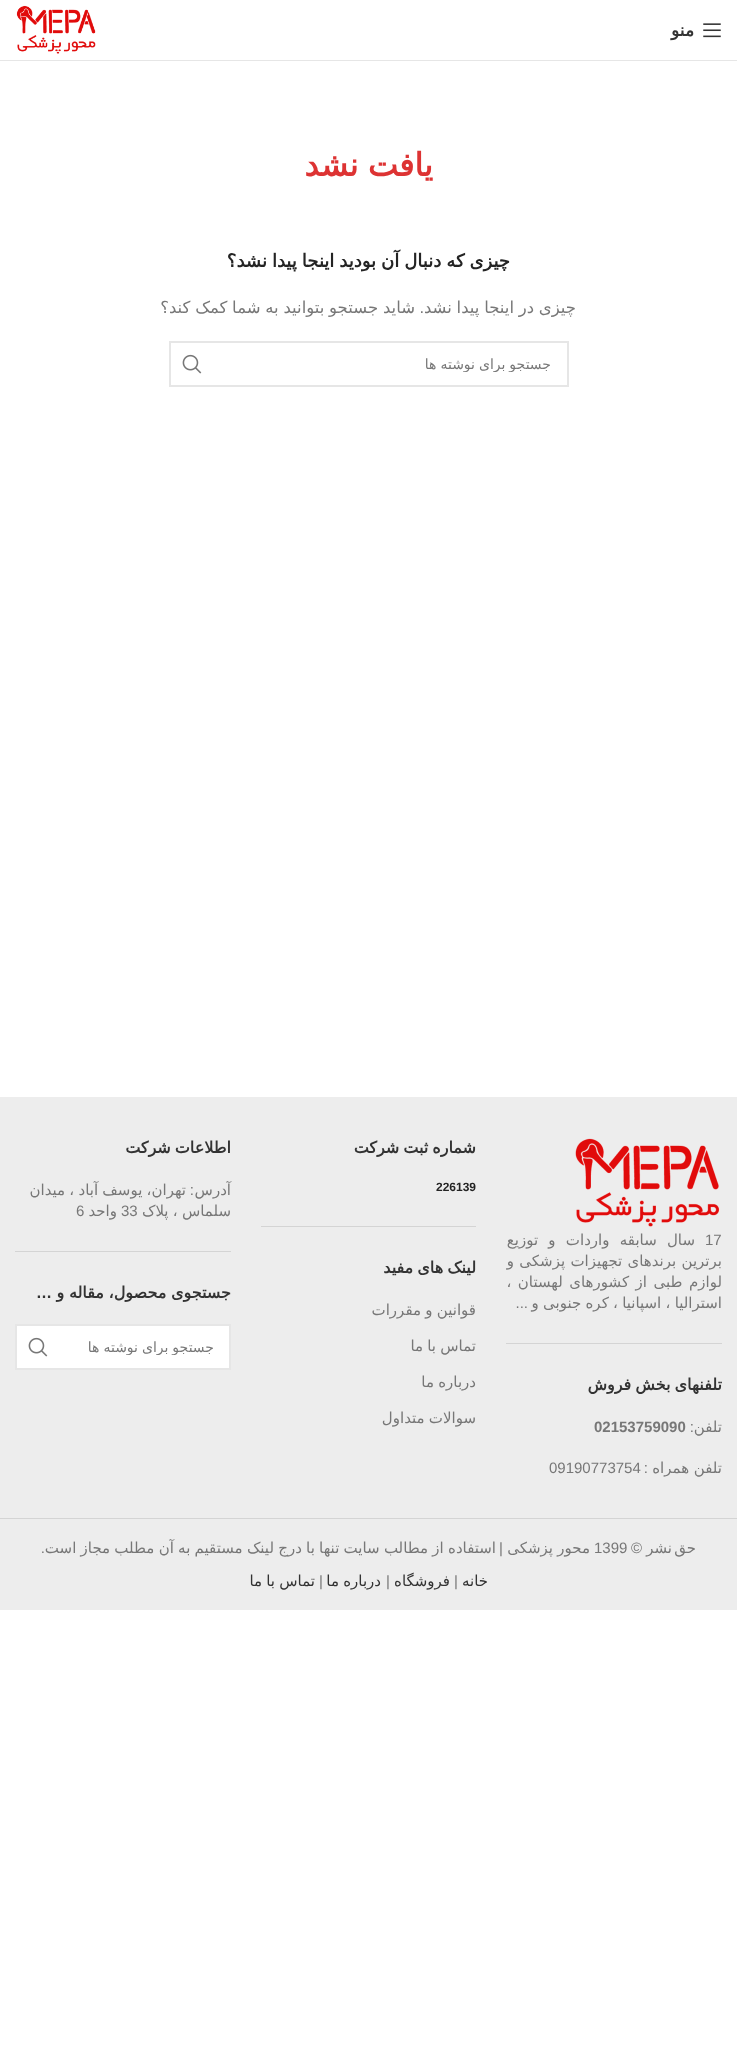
<!DOCTYPE html>
<meta charset="utf-8">
<style>body { margin: 0 } canvas { display: block }</style>
<canvas id="canvas" width="737" height="2071"></canvas>
<script type="module">
  const canvas = document.getElementById("canvas");
  const g = canvas.getContext("2d");
  g.miterLimit = 4;
  g.fontKerning = "normal";
  function drawText(s, x, y, [font, color]) {
    g.font = font;
    g.fillStyle = color;
    g.fillText(s, x, y);
  }
  function fillBox(x, y, w, h, color) {
    g.fillStyle = color;
    g.fillRect(x, y, w, h);
  }
  async function drawPicture(src, x, y, w, h) {
    const img = new Image();
    img.src = src;
    await img.decode();
    g.drawImage(img, x, y, w, h);
  }

  const s1 = ["bold 17px DejaVu Sans", "#333333"];
  const s2 = ["bold 32px DejaVu Sans", "#DD3333"];
  const s3 = ["bold 18px DejaVu Sans", "#242424"];
  const s4 = ["16.5px DejaVu Sans", "#777777"];
  const s5 = ["16.5px Liberation Sans", "#777777"];
  const s6 = ["14px DejaVu Sans", "#777777"];
  const s7 = ["15px Liberation Sans", "#777777"];
  const s8 = ["15px DejaVu Sans", "#777777"];
  const s9 = ["bold 16px DejaVu Sans", "#333333"];
  const s10 = ["bold 15px Liberation Sans", "#777777"];
  const s11 = ["bold 12px Liberation Sans", "#242424"];
  const s12 = ["bold 16px Liberation Sans", "#333333"];
  const s13 = ["15px DejaVu Sans", "#333333"];

  fillBox(0, 0, 737, 2071, "#FFFFFF");
  fillBox(0, 60, 737, 1, "#E6E6E6");
  await drawPicture("pic1.png", 703, 23, 18, 15);
  g.direction = "rtl";
  drawText("منو", 694, 36, s1);
  await drawPicture("pic2.png", 16, 5, 80, 49);
  g.wordSpacing = "-1px";
  drawText("یافت نشد", 433, 176, s2);
  g.wordSpacing = "-0.75px";
  drawText("چیزی که دنبال آن بودید اینجا پیدا نشد؟", 510, 267, s3);
  g.wordSpacing = "-0.5px";
  drawText("چیزی در اینجا پیدا نشد", 576, 313, s4);
  g.wordSpacing = "0px";
  drawText(".", 424, 313, s5);
  g.wordSpacing = "-0.5px";
  drawText("شاید جستجو بتوانید به شما کمک کند؟", 415, 313, s4);
  g.strokeStyle = "#E6E6E6";
  g.lineWidth = 2;
  g.strokeRect(170, 342, 398, 44);
  g.save();
  g.beginPath();
  g.rect(217, 356, 335, 16);
  g.clip();
  drawText("جستجو برای نوشته ها", 551, 369, s6);
  g.restore();
  await drawPicture("pic3.png", 182, 354, 20, 20);
  fillBox(0, 1097, 737, 513, "#EDEDED");
  fillBox(506, 1343, 216, 1, "#D4D4D4");
  await drawPicture("pic4.png", 575, 1138, 145, 89);
  g.wordSpacing = "0px";
  g.direction = "ltr";
  drawText("17", 705, 1245, s7);
  g.wordSpacing = "5.5px";
  g.direction = "rtl";
  drawText("سال سابقه واردات و توزیع", 695, 1245, s8);
  g.wordSpacing = "0.5px";
  drawText("برترین برندهای تجهیزات پزشکی و", 722, 1266, s8);
  g.wordSpacing = "1.75px";
  drawText("لوازم طبی از کشورهای لهستان ،", 722, 1287, s8);
  g.wordSpacing = "-0.5px";
  drawText("استرالیا ، اسپانیا ، کره جنوبی و", 722, 1308, s8);
  g.wordSpacing = "0px";
  drawText("...", 528, 1308, s7);
  g.wordSpacing = "-1px";
  drawText("تلفنهای بخش فروش", 722, 1390, s9);
  g.wordSpacing = "0px";
  drawText("تلفن", 722, 1432, s8);
  drawText(":", 694, 1432, s7);
  g.direction = "ltr";
  drawText("02153759090", 594, 1432, s10);
  g.direction = "rtl";
  drawText("تلفن همراه", 722, 1473, s8);
  drawText(":", 648, 1473, s7);
  g.direction = "ltr";
  drawText("09190773754", 549, 1473, s7);
  fillBox(261, 1226, 215, 1, "#D4D4D4");
  g.wordSpacing = "-1px";
  g.direction = "rtl";
  drawText("شماره ثبت شرکت", 476, 1153, s9);
  g.wordSpacing = "0px";
  g.direction = "ltr";
  drawText("226139", 436, 1191, s11);
  g.wordSpacing = "-1px";
  g.direction = "rtl";
  drawText("لینک های مفید", 476, 1273, s9);
  g.wordSpacing = "-0.5px";
  drawText("قوانین و مقررات", 476, 1315, s8);
  drawText("تماس با ما", 476, 1351, s8);
  drawText("درباره ما", 476, 1387, s8);
  drawText("سوالات متداول", 476, 1423, s8);
  fillBox(15, 1251, 216, 1, "#D4D4D4");
  g.wordSpacing = "-1px";
  drawText("اطلاعات شرکت", 231, 1153, s9);
  g.wordSpacing = "0px";
  drawText("آدرس", 231, 1195, s8);
  drawText(":", 194, 1195, s7);
  g.wordSpacing = "-0.5px";
  drawText("تهران، یوسف آباد ، میدان", 186, 1195, s8);
  drawText("سلماس ، پلاک", 231, 1216, s8);
  g.wordSpacing = "0px";
  g.direction = "ltr";
  drawText("33", 121, 1216, s7);
  g.direction = "rtl";
  drawText("واحد", 117, 1216, s8);
  g.direction = "ltr";
  drawText("6", 76, 1216, s7);
  g.wordSpacing = "-0.5px";
  g.direction = "rtl";
  drawText("جستجوی محصول، مقاله و", 231, 1298, s9);
  g.wordSpacing = "0px";
  drawText("…", 52, 1298, s12);
  g.fillStyle = "#FFFFFF";
  g.beginPath();
  g.rect(16, 1325, 214, 44);
  g.fill();
  g.stroke();
  g.save();
  g.beginPath();
  g.rect(63, 1339, 151, 16);
  g.clip();
  g.wordSpacing = "-0.5px";
  drawText("جستجو برای نوشته ها", 214, 1352, s6);
  g.restore();
  await drawPicture("pic3.png", 28, 1337, 20, 20);
  fillBox(0, 1518, 737, 1, "#D4D4D4");
  drawText("حق", 696, 1553, s8);
  drawText("نشر", 672, 1553, s8);
  drawText("©", 642, 1553, s7);
  g.direction = "ltr";
  drawText("1399", 594, 1553, s7);
  g.wordSpacing = "-0.5px";
  g.direction = "rtl";
  drawText("محور پزشکی", 590, 1553, s8);
  g.wordSpacing = "0px";
  drawText("|", 503, 1553, s7);
  g.wordSpacing = "-0.5px";
  drawText("استفاده از مطالب سایت تنها با درج لینک مستقیم به آن مطلب مجاز است", 496, 1553, s8);
  g.wordSpacing = "0px";
  drawText(".", 45, 1553, s7);
  drawText("خانه", 488, 1586, s13);
  g.direction = "ltr";
  drawText("|", 454, 1586, s7);
  g.direction = "rtl";
  drawText("فروشگاه", 450, 1586, s13);
  g.direction = "ltr";
  drawText("|", 386, 1586, s7);
  g.wordSpacing = "-0.5px";
  g.direction = "rtl";
  drawText("درباره ما", 381, 1586, s13);
  g.wordSpacing = "0px";
  g.direction = "ltr";
  drawText("|", 319, 1586, s7);
  g.wordSpacing = "-0.5px";
  g.direction = "rtl";
  drawText("تماس با ما", 315, 1586, s13);
</script>
